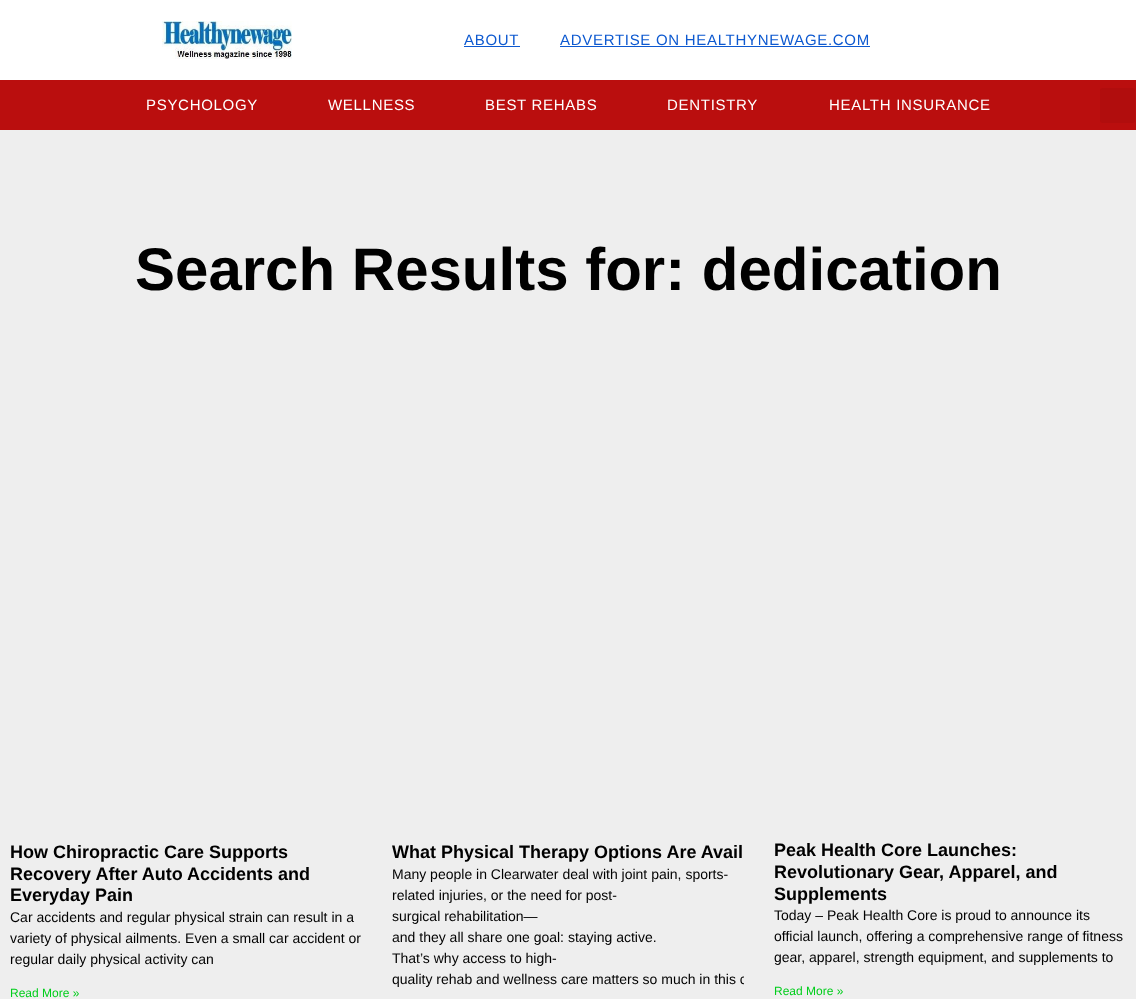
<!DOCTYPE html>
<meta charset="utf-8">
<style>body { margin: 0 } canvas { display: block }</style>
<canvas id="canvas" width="1136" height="999"></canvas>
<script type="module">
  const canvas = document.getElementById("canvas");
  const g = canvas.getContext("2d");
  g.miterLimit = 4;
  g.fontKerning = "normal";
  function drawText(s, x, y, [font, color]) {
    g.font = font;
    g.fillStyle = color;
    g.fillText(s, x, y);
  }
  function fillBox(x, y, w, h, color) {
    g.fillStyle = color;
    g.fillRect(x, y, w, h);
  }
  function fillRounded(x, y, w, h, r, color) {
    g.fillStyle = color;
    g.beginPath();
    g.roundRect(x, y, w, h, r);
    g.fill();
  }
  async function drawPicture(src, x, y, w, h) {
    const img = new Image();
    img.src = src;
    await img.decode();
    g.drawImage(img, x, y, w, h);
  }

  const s1 = ["15px Liberation Sans", "#0D59D0"];
  const s2 = ["15px Liberation Sans", "#FFFFFF"];
  const s3 = ["bold 60px Liberation Sans", "#000000"];
  const s4 = ["bold 18px Liberation Sans", "#000000"];
  const s5 = ["14px Liberation Sans", "#000000"];
  const s6 = ["12px Liberation Sans", "#00CE1B"];

  fillBox(0, 0, 1136, 999, "#FFFFFF");
  await drawPicture("pic1.png", 162, 21, 130, 38);
  g.letterSpacing = "0.7px";
  drawText("ABOUT", 464, 45, s1);
  fillBox(464, 46, 56, 1, "#0D59D0");
  drawText("ADVERTISE ON HEALTHYNEWAGE.COM", 560, 45, s1);
  fillBox(560, 46, 310, 1, "#0D59D0");
  fillBox(0, 80, 1136, 50, "#BA0E0E");
  drawText("PSYCHOLOGY", 146, 110, s2);
  drawText("WELLNESS", 328, 110, s2);
  drawText("BEST REHABS", 485, 110, s2);
  drawText("DENTISTRY", 667, 110, s2);
  drawText("HEALTH INSURANCE", 829, 110, s2);
  fillRounded(1100, 88, 35, 35, 3, "#B10D0D");
  fillBox(0, 130, 1136, 869, "#EEEEEE");
  g.letterSpacing = "0px";
  drawText("Search Results for: dedication", 135, 290, s3);
  drawText("How Chiropractic Care Supports", 10, 858, s4);
  drawText("Recovery After Auto Accidents and", 10, 880, s4);
  drawText("Everyday Pain", 10, 901, s4);
  drawText("Car accidents and regular physical strain can result in a", 10, 922, s5);
  drawText("variety of physical ailments. Even a small car accident or", 10, 943, s5);
  drawText("regular daily physical activity can", 10, 964, s5);
  drawText("Read More »", 10, 997, s6);
  drawText("What Physical Therapy Options Are Avail", 392, 858, s4);
  drawText("Many people in Clearwater deal with joint pain, sports-", 392, 879, s5);
  drawText("related injuries, or the need for post-", 392, 900, s5);
  drawText("surgical rehabilitation—", 392, 921, s5);
  drawText("and they all share one goal: staying active.", 392, 942, s5);
  drawText("That’s why access to high-", 392, 963, s5);
  g.save();
  g.beginPath();
  g.rect(392, 355, 352, 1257);
  g.clip();
  drawText("quality rehab and wellness care matters so much in this c", 392, 984, s5);
  g.restore();
  drawText("Peak Health Core Launches:", 774, 856, s4);
  drawText("Revolutionary Gear, Apparel, and", 774, 878, s4);
  drawText("Supplements", 774, 900, s4);
  drawText("Today – Peak Health Core is proud to announce its", 774, 920, s5);
  drawText("official launch, offering a comprehensive range of fitness", 774, 941, s5);
  drawText("gear, apparel, strength equipment, and supplements to", 774, 962, s5);
  drawText("Read More »", 774, 995, s6);
</script>
